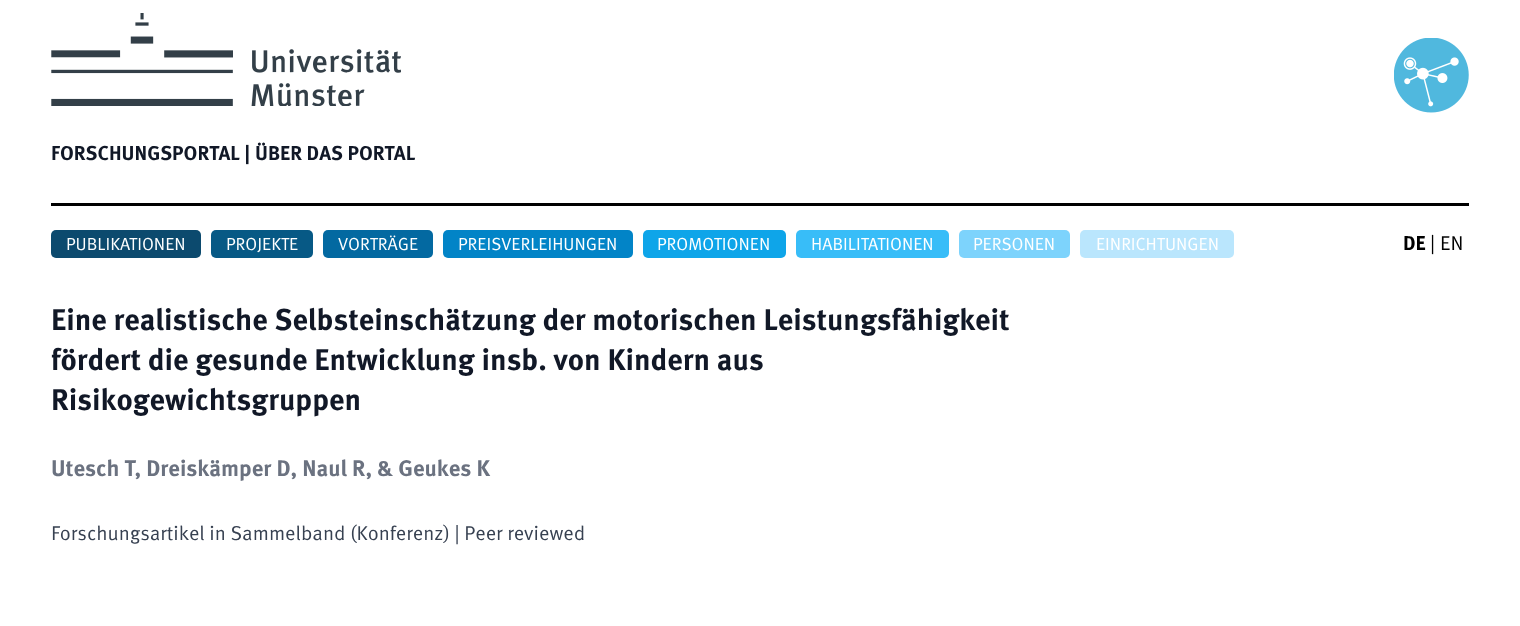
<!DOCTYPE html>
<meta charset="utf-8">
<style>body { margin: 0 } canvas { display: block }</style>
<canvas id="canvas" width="1520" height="626"></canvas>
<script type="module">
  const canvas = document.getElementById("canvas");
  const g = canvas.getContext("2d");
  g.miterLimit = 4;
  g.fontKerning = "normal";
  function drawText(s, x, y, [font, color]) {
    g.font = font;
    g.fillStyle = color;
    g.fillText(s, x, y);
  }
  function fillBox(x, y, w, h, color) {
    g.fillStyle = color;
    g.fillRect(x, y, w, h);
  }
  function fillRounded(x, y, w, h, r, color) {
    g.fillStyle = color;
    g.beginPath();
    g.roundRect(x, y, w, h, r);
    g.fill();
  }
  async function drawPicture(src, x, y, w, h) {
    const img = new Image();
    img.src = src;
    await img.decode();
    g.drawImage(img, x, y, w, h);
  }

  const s1 = ["bold 20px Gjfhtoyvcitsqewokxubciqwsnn", "#111827"];
  const s2 = ["17.5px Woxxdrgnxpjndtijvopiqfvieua", "#FFFFFF"];
  const s3 = ["bold 20px Gjfhtoyvcitsqewokxubciqwsnn", "#000000"];
  const s4 = ["20px Woxxdrgnxpjndtijvopiqfvieua", "#000000"];
  const s5 = ["bold 30px Gjfhtoyvcitsqewokxubciqwsnn", "#111827"];
  const s6 = ["bold 22.5px Gjfhtoyvcitsqewokxubciqwsnn", "#6B7280"];
  const s7 = ["20px Woxxdrgnxpjndtijvopiqfvieua", "#374151"];

  fillBox(0, 0, 1520, 626, "#FFFFFF");
  fillBox(51, 203, 1418, 3, "#000000");
  await drawPicture("pic1.png", 51, 13, 350, 93);
  await drawPicture("pic2.png", 1394, 38, 75, 75);
  drawText("FORSCHUNGSPORTAL |", 51, 160, s1);
  drawText("ÜBER DAS PORTAL", 255, 160, s1);
  fillRounded(51, 230, 150, 28, 5, "#0C4A6E");
  drawText("PUBLIKATIONEN", 66, 250, s2);
  fillRounded(211, 230, 102, 28, 5, "#075985");
  drawText("PROJEKTE", 226, 250, s2);
  fillRounded(323, 230, 110, 28, 5, "#0369A1");
  drawText("VORTRÄGE", 338, 250, s2);
  fillRounded(443, 230, 190, 28, 5, "#0284C7");
  drawText("PREISVERLEIHUNGEN", 458, 250, s2);
  fillRounded(643, 230, 143, 28, 5, "#0EA5E9");
  drawText("PROMOTIONEN", 657, 250, s2);
  fillRounded(796, 230, 153, 28, 5, "#38BDF8");
  drawText("HABILITATIONEN", 811, 250, s2);
  fillRounded(959, 230, 111, 28, 5, "#7DD3FC");
  drawText("PERSONEN", 973, 250, s2);
  fillRounded(1080, 230, 154, 28, 5, "#BAE6FD");
  drawText("EINRICHTUNGEN", 1096, 250, s2);
  drawText("DE", 1403, 250, s3);
  drawText("|", 1430, 250, s4);
  drawText("EN", 1440, 250, s4);
  drawText("Eine realistische Selbsteinschätzung der motorischen Leistungsfähigkeit", 51, 330, s5);
  drawText("fördert die gesunde Entwicklung insb. von Kindern aus", 51, 370, s5);
  drawText("Risikogewichtsgruppen", 51, 410, s5);
  drawText("Utesch T, Dreiskämper D, Naul R, & Geukes K", 51, 476, s6);
  drawText("Forschungsartikel in Sammelband (Konferenz) | Peer reviewed", 51, 540, s7);
</script>
